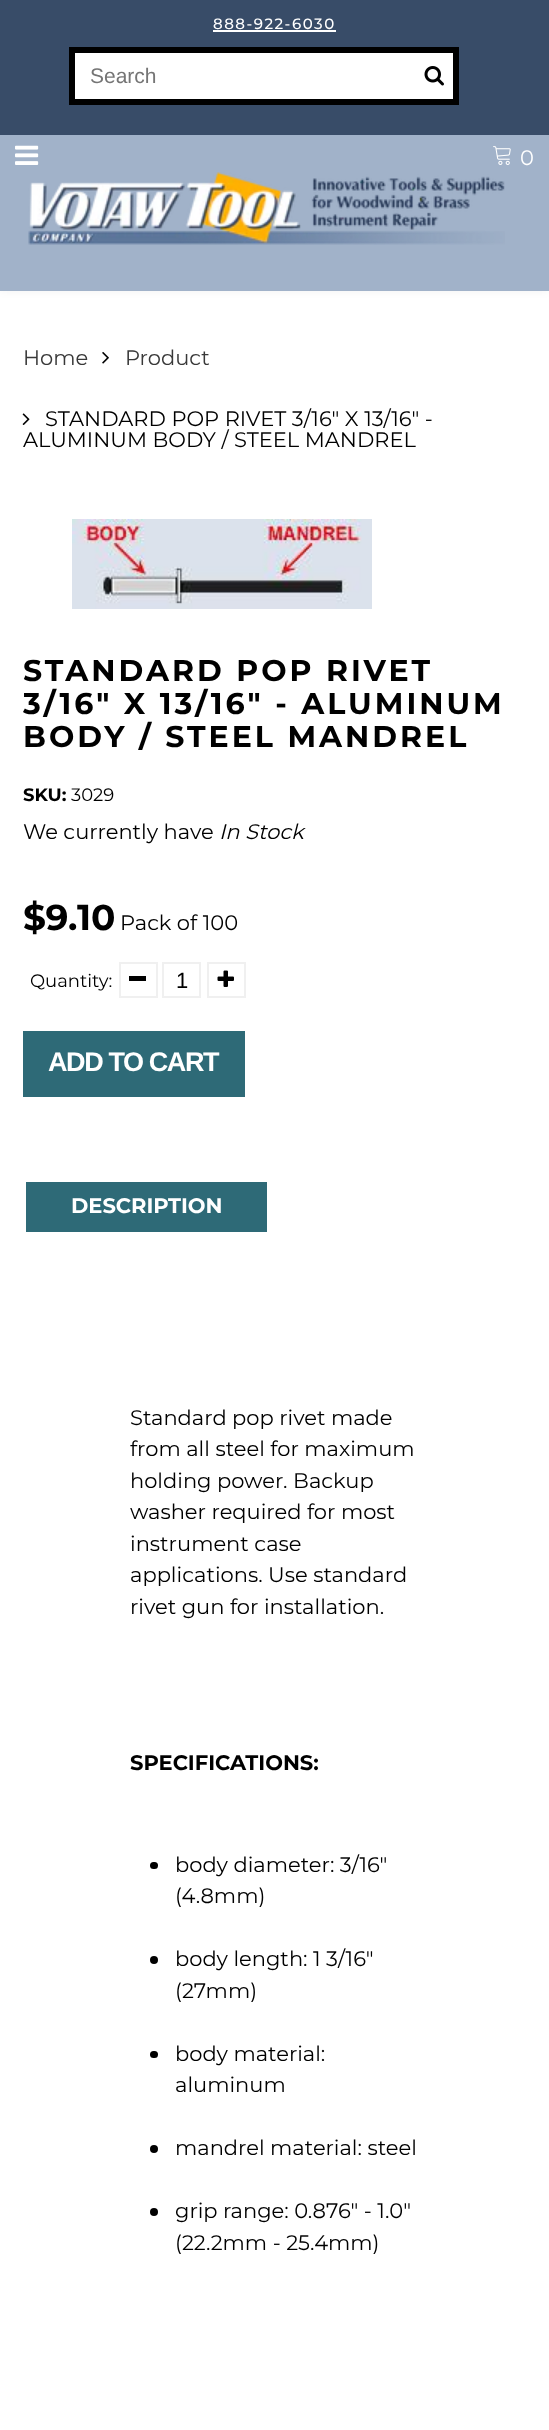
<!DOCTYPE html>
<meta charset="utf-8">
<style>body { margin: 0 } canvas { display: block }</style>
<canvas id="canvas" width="549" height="2430"></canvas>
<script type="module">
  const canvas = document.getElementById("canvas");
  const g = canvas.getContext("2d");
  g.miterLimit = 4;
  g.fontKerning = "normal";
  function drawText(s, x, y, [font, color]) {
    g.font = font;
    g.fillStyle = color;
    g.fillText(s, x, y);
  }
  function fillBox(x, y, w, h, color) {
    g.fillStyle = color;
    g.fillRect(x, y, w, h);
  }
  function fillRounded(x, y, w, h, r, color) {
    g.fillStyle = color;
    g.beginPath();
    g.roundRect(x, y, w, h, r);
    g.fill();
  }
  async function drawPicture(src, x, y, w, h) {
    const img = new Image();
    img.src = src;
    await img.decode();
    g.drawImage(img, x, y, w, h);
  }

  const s1 = ["500 15px Montserrat", "#FFFFFF"];
  const s2 = ["21px Liberation Sans", "#757575"];
  const s3 = ["21px Montserrat", "#FFFFFF"];
  const s4 = ["21px Montserrat", "#383838"];
  const s5 = ["21px Montserrat", "#000000"];
  const s6 = ["bold 30px Montserrat", "#000000"];
  const s7 = ["bold 18px Montserrat", "#000000"];
  const s8 = ["18px Montserrat", "#000000"];
  const s9 = ["italic 21px Montserrat", "#000000"];
  const s10 = ["bold 36px Montserrat", "#000000"];
  const s11 = ["22px Liberation Sans", "#000000"];
  const s12 = ["bold 27px Liberation Sans", "#FFFFFF"];
  const s13 = ["bold 21px Montserrat", "#FFFFFF"];
  const s14 = ["bold 21px Montserrat", "#000000"];

  fillBox(0, 0, 549, 2430, "#FFFFFF");
  g.fillStyle = "rgba(0, 0, 0, 0.05)";
  g.filter = "blur(4px)";
  g.beginPath();
  g.rect(0, 0, 549, 291);
  g.fill();
  g.filter = "none";
  fillBox(0, 0, 549, 135, "#384C68");
  g.letterSpacing = "1.5px";
  drawText("888-922-6030", 213, 29, s1);
  fillBox(213, 30, 123, 2, "#FFFFFF");
  g.beginPath();
  g.rect(72, 50, 384, 52);
  g.fill();
  g.strokeStyle = "#000000";
  g.lineWidth = 6;
  g.stroke();
  g.letterSpacing = "0px";
  drawText("Search", 90, 83, s2);
  await drawPicture("pic1.png", 424, 66, 20, 20);
  fillBox(0, 135, 549, 156, "#A1B2C9");
  await drawPicture("pic2.png", 15, 145, 24, 20);
  await drawPicture("pic3.png", 493, 146, 18, 19);
  drawText("0", 520, 165, s3);
  await drawPicture("pic4.png", 28, 172, 477, 73);
  drawText("Home", 23, 365, s4);
  await drawPicture("pic5.png", 102, 352, 7, 12);
  drawText("Product", 125, 365, s4);
  await drawPicture("pic6.png", 22, 413, 8, 12);
  drawText("STANDARD POP RIVET 3/16\" X 13/16\" -", 45, 426, s5);
  drawText("ALUMINUM BODY / STEEL MANDREL", 23, 447, s5);
  await drawPicture("pic7.png", 72, 519, 300, 90);
  g.letterSpacing = "3px";
  drawText("STANDARD POP RIVET", 23, 681, s6);
  drawText("3/16\" X 13/16\" - ALUMINUM", 23, 714, s6);
  drawText("BODY / STEEL MANDREL", 23, 747, s6);
  g.letterSpacing = "0px";
  drawText("SKU:", 23, 801, s7);
  drawText("3029", 71, 801, s8);
  drawText("We currently have", 23, 839, s5);
  drawText("In Stock", 219, 839, s9);
  drawText("$9.10", 23, 930, s10);
  drawText("Pack of 100", 120, 930, s5);
  drawText("Quantity:", 30, 987, s8);
  g.strokeStyle = "#F0F0F0";
  g.lineWidth = 2;
  g.strokeRect(120, 963, 37, 34);
  fillBox(129, 976, 17, 5, "#000000");
  g.strokeRect(163, 963, 37, 34);
  drawText("1", 176, 988, s11);
  g.strokeRect(208, 963, 37, 34);
  await drawPicture("pic8.png", 217, 970, 17, 17);
  fillBox(23, 1031, 222, 66, "#2E6A77");
  g.letterSpacing = "-1.4px";
  drawText("ADD TO CART", 48, 1071, s12);
  fillBox(26, 1182, 241, 50, "#2E6A77");
  g.letterSpacing = "0px";
  drawText("DESCRIPTION", 71, 1213, s13);
  drawText("Standard pop rivet made", 130, 1425, s5);
  drawText("from all steel for maximum", 130, 1456, s5);
  drawText("holding power. Backup", 130, 1488, s5);
  drawText("washer required for most", 130, 1519, s5);
  drawText("instrument case", 130, 1551, s5);
  drawText("applications. Use standard", 130, 1582, s5);
  drawText("rivet gun for installation.", 130, 1614, s5);
  drawText("SPECIFICATIONS:", 130, 1770, s14);
  fillRounded(150, 1862, 8, 7, 3.5, "#000000");
  drawText("body diameter: 3/16\"", 175, 1872, s5);
  drawText("(4.8mm)", 175, 1903, s5);
  g.beginPath();
  g.arc(154, 1960, 4, 0, Math.PI * 2);
  g.fill();
  drawText("body length: 1 3/16\"", 175, 1966, s5);
  drawText("(27mm)", 175, 1998, s5);
  fillRounded(150, 2051, 8, 7, 3.5, "#000000");
  drawText("body material:", 175, 2061, s5);
  drawText("aluminum", 175, 2092, s5);
  g.beginPath();
  g.arc(154, 2149, 4, 0, Math.PI * 2);
  g.fill();
  drawText("mandrel material: steel", 175, 2155, s5);
  g.beginPath();
  g.arc(154, 2212, 4, 0, Math.PI * 2);
  g.fill();
  drawText("grip range: 0.876\" - 1.0\"", 175, 2218, s5);
  drawText("(22.2mm - 25.4mm)", 175, 2250, s5);
</script>
